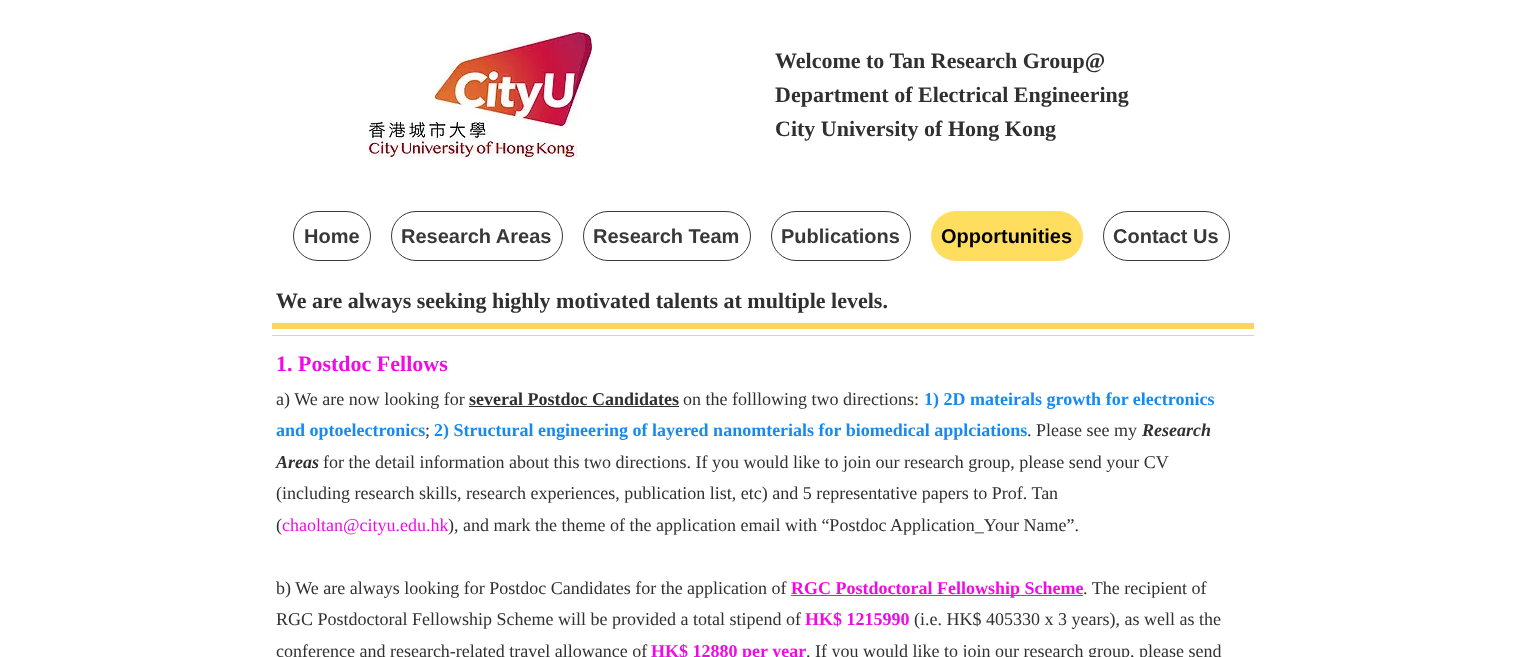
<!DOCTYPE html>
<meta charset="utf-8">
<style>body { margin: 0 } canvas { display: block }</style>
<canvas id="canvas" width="1523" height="657"></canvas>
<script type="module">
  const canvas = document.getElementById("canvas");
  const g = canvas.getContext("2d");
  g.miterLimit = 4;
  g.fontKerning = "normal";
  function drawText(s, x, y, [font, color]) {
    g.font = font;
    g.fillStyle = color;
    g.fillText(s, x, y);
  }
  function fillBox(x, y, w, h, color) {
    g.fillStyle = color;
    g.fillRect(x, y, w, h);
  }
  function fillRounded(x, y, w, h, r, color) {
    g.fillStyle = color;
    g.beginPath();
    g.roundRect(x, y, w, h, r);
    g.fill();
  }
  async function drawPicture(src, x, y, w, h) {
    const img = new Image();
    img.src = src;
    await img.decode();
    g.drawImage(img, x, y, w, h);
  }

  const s1 = ["bold 22px Liberation Serif", "#303030"];
  const s2 = ["bold 20px Liberation Sans", "#383838"];
  const s3 = ["bold 20px Liberation Sans", "#000000"];
  const s4 = ["bold 22px Liberation Serif", "#F20AE5"];
  const s5 = ["18px Liberation Serif", "#303030"];
  const s6 = ["bold 18px Liberation Serif", "#303030"];
  const s7 = ["bold 18px Liberation Serif", "#178AF0"];
  const s8 = ["italic bold 18px Liberation Serif", "#303030"];
  const s9 = ["18px Liberation Serif", "#F20AE5"];
  const s10 = ["bold 18px Liberation Serif", "#F20AE5"];

  fillBox(0, 0, 1523, 657, "#FFFFFF");
  await drawPicture("pic1.png", 369, 32, 223, 125);
  drawText("Welcome to Tan Research Group@", 775, 68, s1);
  drawText("Department of Electrical Engineering", 775, 102, s1);
  drawText("City University of Hong Kong", 775, 136, s1);
  g.beginPath();
  g.roundRect(293.5, 211.5, 77, 49, 24.5);
  g.strokeStyle = "#383838";
  g.stroke();
  drawText("Home", 304, 243, s2);
  g.beginPath();
  g.roundRect(391.5, 211.5, 171, 49, 24.5);
  g.stroke();
  drawText("Research Areas", 401, 243, s2);
  g.beginPath();
  g.roundRect(583.5, 211.5, 167, 49, 24.5);
  g.stroke();
  drawText("Research Team", 593, 243, s2);
  g.beginPath();
  g.roundRect(771.5, 211.5, 139, 49, 24.5);
  g.stroke();
  drawText("Publications", 781, 243, s2);
  fillRounded(931, 211, 152, 50, 25, "#FFDE5F");
  drawText("Opportunities", 941, 243, s3);
  g.beginPath();
  g.roundRect(1103.5, 211.5, 126, 49, 24.5);
  g.stroke();
  drawText("Contact Us", 1113, 243, s2);
  drawText("We are always seeking highly motivated talents at multiple levels.", 276, 308, s1);
  drawText("1. Postdoc Fellows", 276, 371, s4);
  drawText("a) We are now looking for", 276, 405, s5);
  drawText("several Postdoc Candidates", 469, 405, s6);
  fillBox(469, 406, 210, 1, "#303030");
  drawText("on the folllowing two directions:", 683, 405, s5);
  drawText("1) 2D mateirals growth for electronics", 924, 405, s7);
  drawText("and optoelectronics", 276, 436, s7);
  drawText(";", 425, 436, s5);
  drawText("2) Structural engineering of layered nanomterials for biomedical applciations", 434, 436, s7);
  drawText(". Please see my", 1027, 436, s5);
  drawText("Research", 1142, 436, s8);
  drawText("Areas", 276, 468, s8);
  drawText("for the detail information about this two directions. If you would like to join our research group, please send your CV", 323, 468, s5);
  drawText("(including research skills, research experiences, publication list, etc) and 5 representative papers to Prof. Tan", 276, 499, s5);
  drawText("(", 276, 531, s5);
  drawText("chaoltan@cityu.edu.hk", 282, 531, s9);
  drawText("), and mark the theme of the application email with “Postdoc Application_Your Name”.", 448, 531, s5);
  drawText("b) We are always looking for Postdoc Candidates for the application of", 276, 594, s5);
  fillBox(791, 595, 292, 1, "#F20AE5");
  drawText("RGC Postdoctoral Fellowship Scheme", 791, 594, s10);
  drawText(". The recipient of", 1083, 594, s5);
  drawText("RGC Postdoctoral Fellowship Scheme will be provided a total stipend of", 276, 625, s5);
  drawText("HK$ 1215990", 805, 625, s10);
  drawText("(i.e. HK$ 405330 x 3 years), as well as the", 914, 625, s5);
  drawText("conference and research-related travel allowance of", 276, 657, s5);
  drawText("HK$ 12880 per year", 651, 657, s10);
  drawText(". If you would like to join our research group, please send", 806, 657, s5);
  fillBox(272, 323, 982, 6, "#FFD45A");
  fillBox(272, 335, 982, 1, "#FFD45A");
</script>
